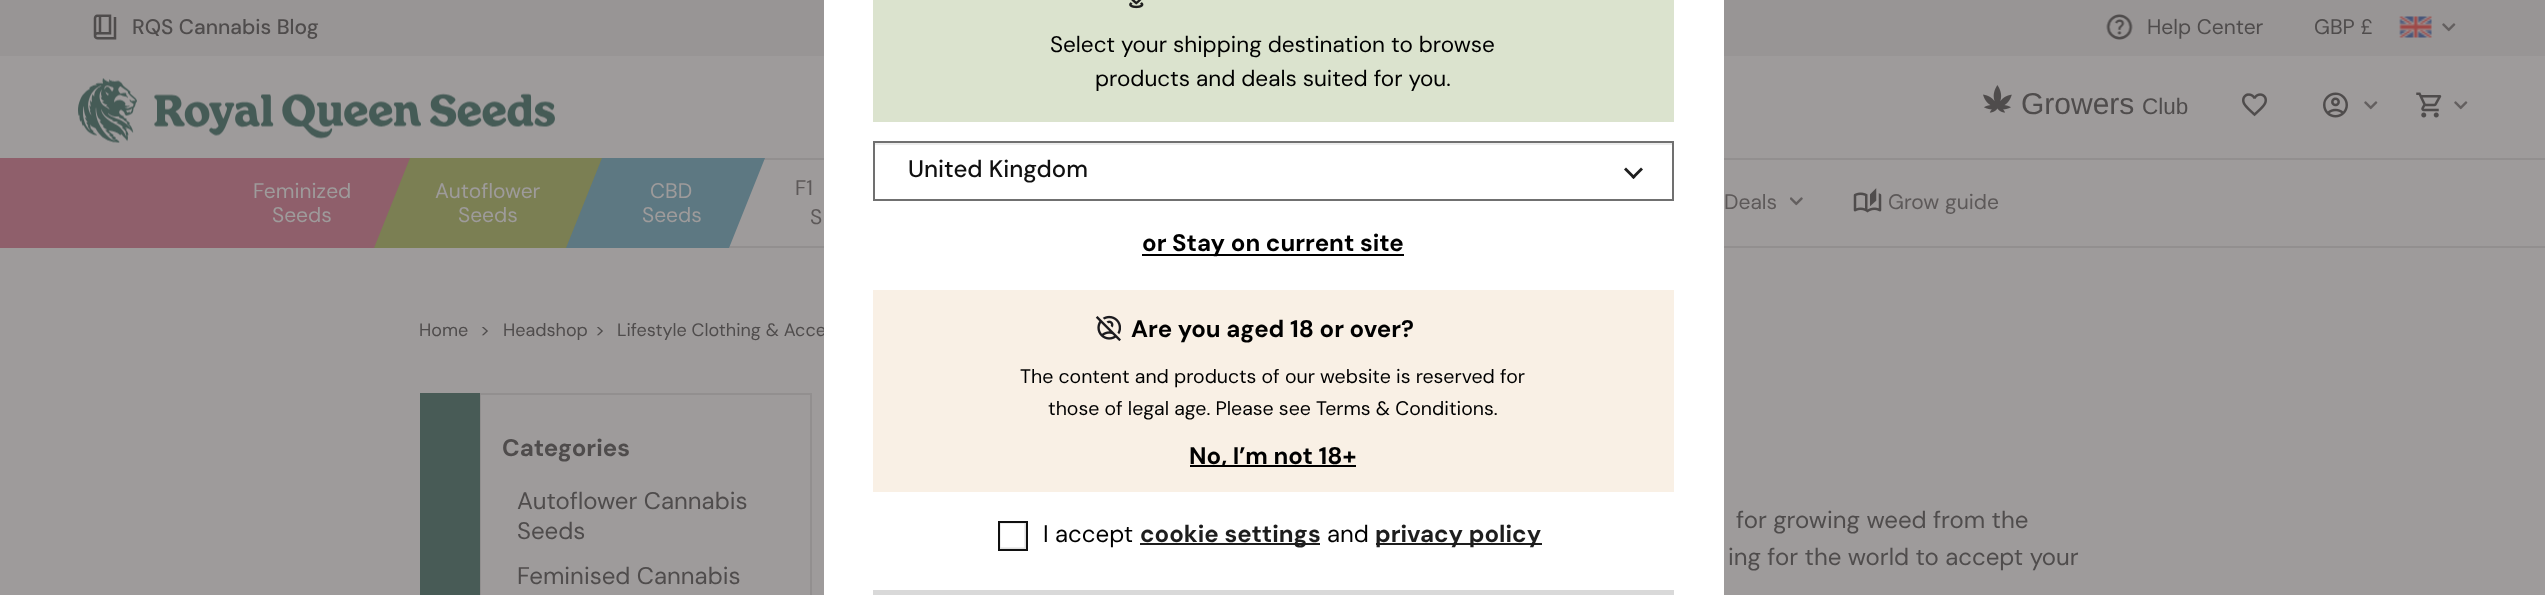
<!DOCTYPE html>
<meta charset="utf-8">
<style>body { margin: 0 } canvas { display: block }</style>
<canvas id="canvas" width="2545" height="595"></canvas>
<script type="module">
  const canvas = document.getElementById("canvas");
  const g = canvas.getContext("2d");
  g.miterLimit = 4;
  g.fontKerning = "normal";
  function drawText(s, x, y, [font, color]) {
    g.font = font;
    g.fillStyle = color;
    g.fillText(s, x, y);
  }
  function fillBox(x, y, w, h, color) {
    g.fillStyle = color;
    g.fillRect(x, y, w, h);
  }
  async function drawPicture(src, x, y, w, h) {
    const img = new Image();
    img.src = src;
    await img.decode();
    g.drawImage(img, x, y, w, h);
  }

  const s1 = ["500 21px DM Sans", "#4F4C4C"];
  const s2 = ["21px DM Sans", "#4F4C4C"];
  const s3 = ["30px Liberation Sans", "#4F4C4C"];
  const s4 = ["22.5px Liberation Sans", "#4F4C4C"];
  const s5 = ["21px DM Sans", "#9E9B9B"];
  const s6 = ["21px DM Sans", "#5D5959"];
  const s7 = ["18px DM Sans", "#4F4C4C"];
  const s8 = ["22.5px DM Sans", "#000000"];
  const s9 = ["500 24px DM Sans", "#101010"];
  const s10 = ["bold 24px DM Sans", "#000000"];
  const s11 = ["19.5px DM Sans", "#000000"];
  const s12 = ["24px DM Sans", "#000000"];
  const s13 = ["bold 24px DM Sans", "#1E1E1E"];
  const s14 = ["24px DM Sans", "#4F4C4C"];
  const s15 = ["bold 24px DM Sans", "#4F4C4C"];

  fillBox(0, 0, 2545, 595, "#9E9B9B");
  fillBox(0, 0, 2545, 56, "#989595");
  await drawPicture("pic1.png", 93, 14, 24, 26);
  drawText("RQS Cannabis Blog", 132, 34, s1);
  await drawPicture("pic2.png", 2106, 14, 27, 26);
  drawText("Help Center", 2147, 34, s2);
  drawText("GBP £", 2314, 34, s2);
  await drawPicture("pic3.png", 2399, 16, 33, 22);
  await drawPicture("pic4.png", 2442, 23, 14, 9);
  await drawPicture("pic5.png", 78, 78, 477, 65);
  await drawPicture("pic6.png", 1983, 85, 29, 28);
  drawText("Growers", 2021, 114, s3);
  drawText("Club", 2142, 114, s4);
  await drawPicture("pic7.png", 2242, 93, 25, 24);
  await drawPicture("pic8.png", 2323, 92, 25, 26);
  await drawPicture("pic9.png", 2364, 101, 14, 9);
  await drawPicture("pic10.png", 2416, 92, 26, 26);
  await drawPicture("pic9.png", 2454, 101, 14, 9);
  fillBox(0, 158, 410, 90, "#8F5F6B");
  fillBox(764, 158, 1781, 2, "#928F8F");
  fillBox(729, 246, 1816, 2, "#928F8F");
  drawText("Feminized", 253, 198, s5);
  drawText("Seeds", 272, 222, s5);
  g.fillStyle = "#5D7882";
  g.beginPath();
  g.moveTo(557, 158);
  g.lineTo(765, 158);
  g.lineTo(729, 248);
  g.lineTo(521, 248);
  g.closePath();
  g.fill();
  g.fillStyle = "#7B7F53";
  g.beginPath();
  g.moveTo(410, 158);
  g.lineTo(602, 158);
  g.lineTo(566, 248);
  g.lineTo(374, 248);
  g.closePath();
  g.fill();
  drawText("Autoflower", 435, 198, s5);
  drawText("Seeds", 458, 222, s5);
  drawText("CBD", 650, 198, s5);
  drawText("Seeds", 642, 222, s5);
  drawText("F1", 795, 195, s6);
  drawText("S", 810, 224, s6);
  drawText("Deals", 1724, 209, s6);
  await drawPicture("pic11.png", 1790, 197, 13, 9);
  await drawPicture("pic12.png", 1853, 188, 29, 25);
  drawText("Grow guide", 1888, 209, s6);
  drawText("Lifestyle Clothing & Acce", 617, 336, s7);
  fillBox(824, 0, 900, 595, "#FFFFFF");
  fillBox(873, 0, 801, 122, "#DBE3CE");
  await drawPicture("pic13.png", 1129, 0, 15, 9);
  drawText("Select your shipping destination to browse", 1050, 52, s8);
  drawText("products and deals suited for you.", 1095, 86, s8);
  fillBox(875, 143, 798, 2, "#ECECEC");
  g.strokeStyle = "#707070";
  g.lineWidth = 2;
  g.strokeRect(874, 142, 799, 58);
  drawText("United Kingdom", 908, 177, s9);
  g.fillStyle = "#1E1E1E";
  g.beginPath();
  g.moveTo(1643, 169.5);
  g.lineTo(1633.5, 179);
  g.lineTo(1631.5, 177);
  g.lineTo(1641, 167.5);
  g.closePath();
  g.fill();
  g.beginPath();
  g.moveTo(1635.5, 177);
  g.lineTo(1633.5, 179);
  g.lineTo(1624, 169.5);
  g.lineTo(1626, 167.5);
  g.closePath();
  g.fill();
  fillBox(1142, 254, 262, 2, "#000000");
  drawText("or Stay on current site", 1142, 251, s10);
  fillBox(873, 290, 801, 202, "#F9F0E5");
  await drawPicture("pic14.png", 1095, 315, 26, 26);
  drawText("Are you aged 18 or over?", 1131, 337, s10);
  drawText("The content and products of our website is reserved for", 1020, 383, s11);
  drawText("those of legal age. Please see Terms & Conditions.", 1048, 415, s11);
  fillBox(1190, 465, 166, 2, "#000000");
  drawText("No, I’m not 18+", 1189, 464, s10);
  await drawPicture("pic15.png", 1000, 523, 26, 26);
  g.strokeStyle = "#101010";
  g.strokeRect(999, 522, 28, 28);
  drawText("I accept", 1043, 542, s12);
  fillBox(1140, 543, 180, 2, "#1E1E1E");
  drawText("cookie settings", 1140, 542, s13);
  drawText("and", 1327, 542, s12);
  fillBox(1376, 543, 166, 2, "#1E1E1E");
  drawText("privacy policy", 1375, 542, s13);
  fillBox(873, 590, 801, 5, "#D9D9D9");
  drawText("Home", 419, 336, s7);
  drawText(">", 480, 336, s7);
  drawText("Headshop", 503, 336, s7);
  drawText(">", 595, 336, s7);
  drawText("for growing weed from the", 1736, 528, s14);
  drawText("ing for the world to accept your", 1728, 565, s14);
  g.strokeStyle = "#928F8F";
  g.strokeRect(480, 394, 331, 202);
  fillBox(420, 393, 60, 202, "#485B56");
  drawText("Categories", 502, 456, s15);
  drawText("Autoflower Cannabis", 517, 509, s14);
  drawText("Seeds", 517, 539, s14);
  drawText("Feminised Cannabis", 517, 584, s14);
</script>
